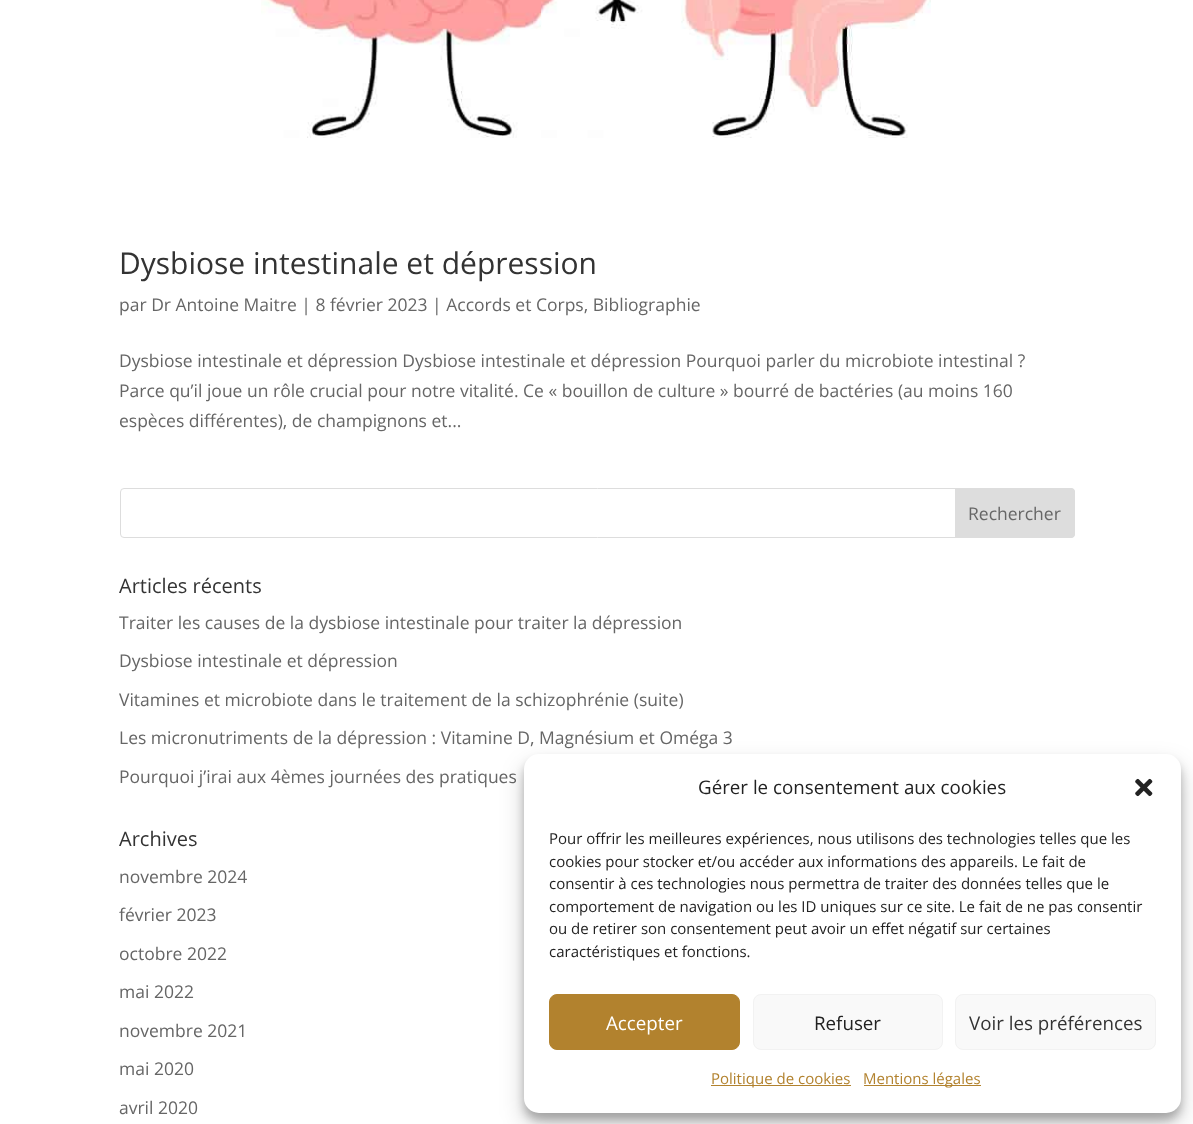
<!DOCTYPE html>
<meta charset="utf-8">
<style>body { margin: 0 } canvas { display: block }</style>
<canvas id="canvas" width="1193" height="1124"></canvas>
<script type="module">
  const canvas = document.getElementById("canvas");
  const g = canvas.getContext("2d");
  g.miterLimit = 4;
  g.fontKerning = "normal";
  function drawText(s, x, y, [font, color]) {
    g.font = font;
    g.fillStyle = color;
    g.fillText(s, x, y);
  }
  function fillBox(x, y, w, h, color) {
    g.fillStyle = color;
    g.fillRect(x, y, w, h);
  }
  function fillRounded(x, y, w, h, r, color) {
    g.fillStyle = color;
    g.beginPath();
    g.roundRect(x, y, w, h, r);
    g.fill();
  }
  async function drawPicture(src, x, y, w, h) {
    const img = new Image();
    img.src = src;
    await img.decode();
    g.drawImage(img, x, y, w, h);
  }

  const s1 = ["30px Open Sans", "#333333"];
  const s2 = ["17.5px Open Sans", "#666666"];
  const s3 = ["20px Open Sans", "#333333"];
  const s4 = ["18.75px Open Sans", "#222222"];
  const s5 = ["15px Open Sans", "#222222"];
  const s6 = ["18.75px Open Sans", "#FFFFFF"];
  const s7 = ["18.75px Open Sans", "#333333"];
  const s8 = ["15px Open Sans", "#B2822E"];

  fillBox(0, 0, 1193, 1124, "#FFFFFF");
  await drawPicture("pic1.png", 261, 0, 670, 138);
  drawText("Dysbiose intestinale et dépression", 119, 274, s1);
  drawText("par Dr Antoine Maitre | 8 février 2023 | Accords et Corps, Bibliographie", 119, 311, s2);
  drawText("Dysbiose intestinale et dépression Dysbiose intestinale et dépression Pourquoi parler du microbiote intestinal ?", 119, 367, s2);
  drawText("Parce qu’il joue un rôle crucial pour notre vitalité. Ce « bouillon de culture » bourré de bactéries (au moins 160", 119, 397, s2);
  drawText("espèces différentes), de champignons et...", 119, 427, s2);
  g.beginPath();
  g.roundRect(120.5, 488.5, 954, 49, 3.5);
  g.strokeStyle = "#DDDDDD";
  g.stroke();
  g.fillStyle = "#DDDDDD";
  g.beginPath();
  g.roundRect(955.5, 488.5, 119, 49, [0, 3.5, 3.5, 0]);
  g.fill();
  g.stroke();
  drawText("Rechercher", 968, 520, s2);
  drawText("Articles récents", 119, 593, s3);
  drawText("Traiter les causes de la dysbiose intestinale pour traiter la dépression", 119, 629, s2);
  drawText("Dysbiose intestinale et dépression", 119, 667, s2);
  drawText("Vitamines et microbiote dans le traitement de la schizophrénie (suite)", 119, 706, s2);
  drawText("Les micronutriments de la dépression : Vitamine D, Magnésium et Oméga 3", 119, 744, s2);
  drawText("Pourquoi j’irai aux 4èmes journées des pratiques", 119, 783, s2);
  drawText("Archives", 119, 846, s3);
  drawText("novembre 2024", 119, 883, s2);
  drawText("février 2023", 119, 921, s2);
  drawText("octobre 2022", 119, 960, s2);
  drawText("mai 2022", 119, 998, s2);
  drawText("novembre 2021", 119, 1037, s2);
  drawText("mai 2020", 119, 1075, s2);
  drawText("avril 2020", 119, 1114, s2);
  g.fillStyle = "rgba(0, 0, 0, 0.23)";
  g.filter = "blur(4px)";
  g.beginPath();
  g.roundRect(524, 761, 657, 359, 15);
  g.fill();
  g.filter = "none";
  g.fillStyle = "rgba(0, 0, 0, 0.19)";
  g.filter = "blur(12.5px)";
  g.beginPath();
  g.roundRect(524, 766, 657, 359, 15);
  g.fill();
  g.filter = "none";
  fillRounded(524, 754, 657, 359, 15, "#FFFFFF");
  drawText("Gérer le consentement aux cookies", 698, 794, s4);
  await drawPicture("pic2.png", 1135, 778, 18, 19);
  drawText("Pour offrir les meilleures expériences, nous utilisons des technologies telles que les", 549, 844, s5);
  drawText("cookies pour stocker et/ou accéder aux informations des appareils. Le fait de", 549, 867, s5);
  drawText("consentir à ces technologies nous permettra de traiter des données telles que le", 549, 889, s5);
  drawText("comportement de navigation ou les ID uniques sur ce site. Le fait de ne pas consentir", 549, 912, s5);
  drawText("ou de retirer son consentement peut avoir un effet négatif sur certaines", 549, 934, s5);
  drawText("caractéristiques et fonctions.", 549, 957, s5);
  g.fillStyle = "#B2822E";
  g.beginPath();
  g.roundRect(549.5, 994.5, 190, 55, 7.5);
  g.fill();
  g.strokeStyle = "#B2822E";
  g.stroke();
  drawText("Accepter", 606, 1030, s6);
  g.fillStyle = "#F9F9F9";
  g.beginPath();
  g.roundRect(753.5, 994.5, 189, 55, 7.5);
  g.fill();
  g.strokeStyle = "#F2F2F2";
  g.stroke();
  drawText("Refuser", 814, 1030, s4);
  g.fillStyle = "#F9F9F9";
  g.beginPath();
  g.roundRect(955.5, 994.5, 200, 55, 7.5);
  g.fill();
  g.stroke();
  drawText("Voir les préférences", 969, 1030, s7);
  fillBox(711, 1085, 140, 1, "#B2822E");
  drawText("Politique de cookies", 711, 1084, s8);
  fillBox(864, 1085, 117, 1, "#B2822E");
  drawText("Mentions légales", 863, 1084, s8);
</script>
